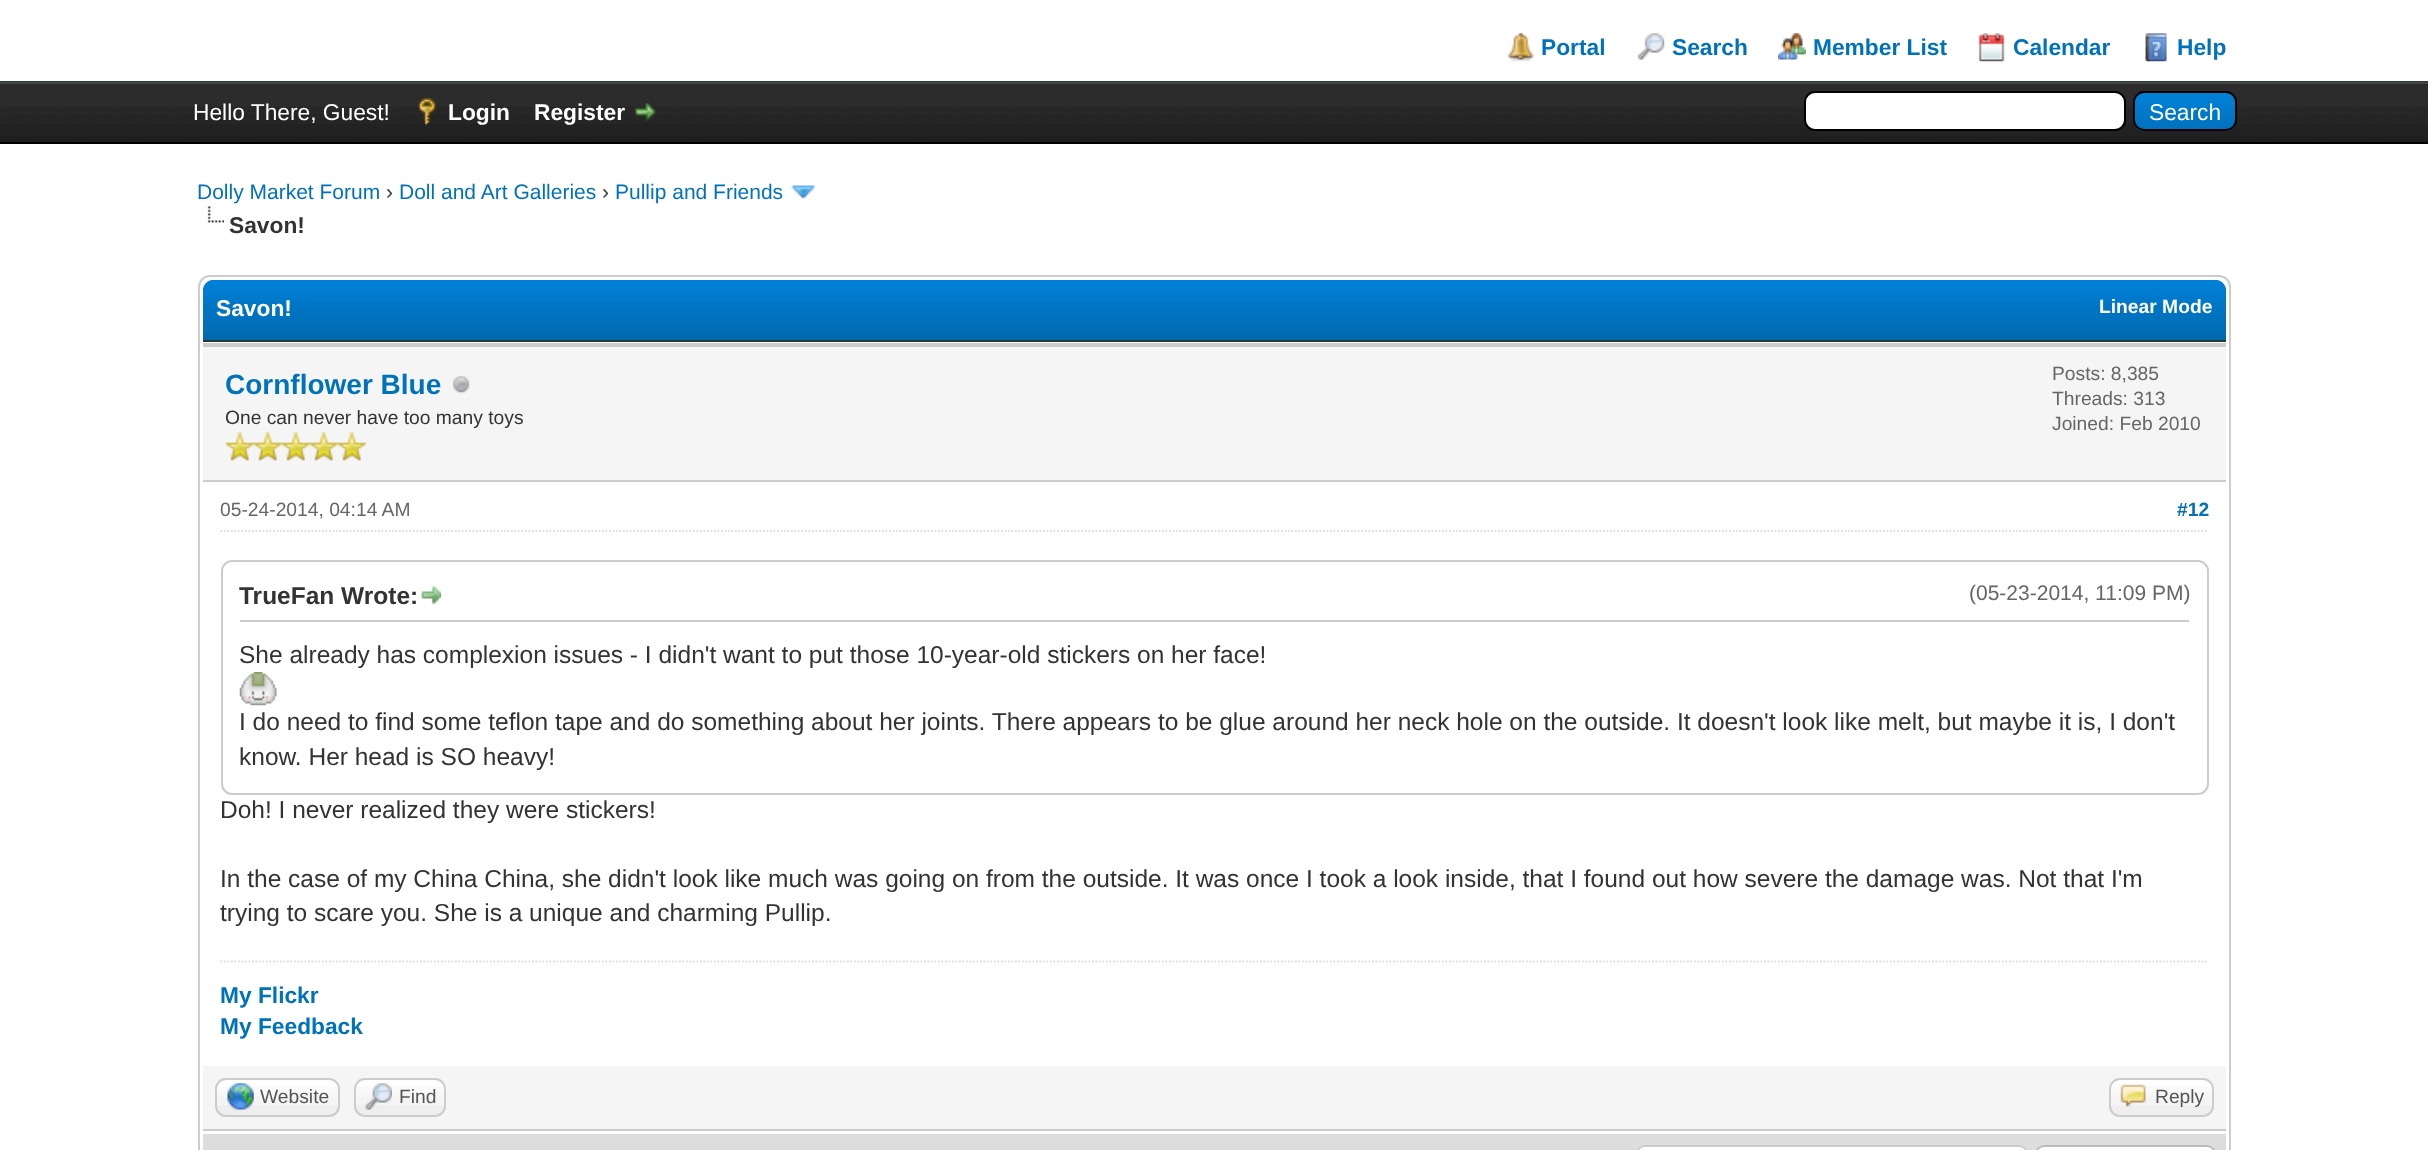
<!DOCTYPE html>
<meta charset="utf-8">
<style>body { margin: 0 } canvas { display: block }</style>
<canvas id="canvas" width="2428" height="1150"></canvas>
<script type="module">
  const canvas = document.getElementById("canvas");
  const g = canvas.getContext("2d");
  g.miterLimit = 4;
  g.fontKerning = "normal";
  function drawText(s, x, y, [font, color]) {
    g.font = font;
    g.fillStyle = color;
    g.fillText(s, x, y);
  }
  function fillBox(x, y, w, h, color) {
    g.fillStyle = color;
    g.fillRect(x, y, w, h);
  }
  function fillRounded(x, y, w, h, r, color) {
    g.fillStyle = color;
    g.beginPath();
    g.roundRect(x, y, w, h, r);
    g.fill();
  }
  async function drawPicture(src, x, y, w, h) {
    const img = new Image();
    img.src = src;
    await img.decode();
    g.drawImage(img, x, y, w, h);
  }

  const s1 = ["bold 22.75px Liberation Sans", "#0072BC"];
  const s2 = ["22.75px Liberation Sans", "#FFFFFF"];
  const s3 = ["bold 22.75px Liberation Sans", "#FFFFFF"];
  const s4 = ["21px Liberation Sans", "#0072BC"];
  const s5 = ["21px Liberation Sans", "#333333"];
  const s6 = ["bold 22.75px Liberation Sans", "#333333"];
  const s7 = ["bold 19.25px Liberation Sans", "#FFFFFF"];
  const s8 = ["bold 28px Liberation Sans", "#0072BC"];
  const s9 = ["19.25px Liberation Sans", "#333333"];
  const s10 = ["19.25px Liberation Sans", "#666666"];
  const s11 = ["bold 19.25px Liberation Sans", "#0072BC"];
  const s12 = ["bold 24.5px Liberation Sans", "#333333"];
  const s13 = ["21px Liberation Sans", "#666666"];
  const s14 = ["24.5px Liberation Sans", "#333333"];
  const s15 = ["19.25px Liberation Sans", "#555555"];

  fillBox(0, 0, 2428, 1150, "#FFFFFF");
  fillBox(0, 81, 2428, 1, "#263C30");
  await drawPicture("pic1.png", 1508, 33, 26, 29);
  drawText("Portal", 1541, 55, s1);
  await drawPicture("pic2.png", 1637, 33, 28, 27);
  drawText("Search", 1672, 55, s1);
  await drawPicture("pic3.png", 1778, 33, 28, 27);
  drawText("Member List", 1813, 55, s1);
  await drawPicture("pic4.png", 1978, 33, 27, 29);
  drawText("Calendar", 2013, 55, s1);
  await drawPicture("pic5.png", 2145, 33, 22, 29);
  drawText("Help", 2177, 55, s1);
  await drawPicture("pic6.png", 0, 84, 2428, 58);
  fillBox(0, 82, 2428, 2, "#444444");
  fillBox(0, 142, 2428, 2, "#000000");
  drawText("Hello There, Guest!", 193, 120, s2);
  await drawPicture("pic7.png", 418, 98, 19, 27);
  drawText("Login", 448, 120, s3);
  drawText("Register", 534, 120, s3);
  await drawPicture("pic8.png", 634, 103, 23, 18);
  g.beginPath();
  g.roundRect(1805, 92, 320, 38, 10);
  g.fill();
  g.strokeStyle = "#000000";
  g.lineWidth = 2;
  g.stroke();
  await drawPicture("pic9.png", 2133, 92, 104, 40);
  g.beginPath();
  g.roundRect(2134, 92, 102, 38, 10);
  g.stroke();
  drawText("Search", 2149, 120, s2);
  drawText("Dolly Market Forum", 197, 199, s4);
  drawText("›", 386, 199, s5);
  drawText("Doll and Art Galleries", 399, 199, s4);
  drawText("›", 602, 199, s5);
  drawText("Pullip and Friends", 615, 199, s4);
  await drawPicture("pic10.png", 790, 185, 26, 14);
  await drawPicture("pic11.png", 207, 206, 17, 17);
  drawText("Savon!", 229, 233, s6);
  g.beginPath();
  g.roundRect(199, 276, 2031, 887, 11);
  g.strokeStyle = "#CCCCCC";
  g.stroke();
  g.fillStyle = "#0066A2";
  g.beginPath();
  g.roundRect(203, 280, 2023, 61, [11, 11, 0, 0]);
  g.fill();
  await drawPicture("pic12.png", 203, 280, 2023, 60);
  fillBox(203, 340, 2023, 2, "#263C30");
  drawText("Savon!", 216, 316, s3);
  drawText("Linear Mode", 2099, 313, s7);
  fillBox(203, 347, 2023, 133, "#F5F5F5");
  fillBox(203, 343, 2023, 4, "#CCCCCC");
  fillBox(203, 480, 2023, 2, "#CCCCCC");
  drawText("Cornflower Blue", 225, 394, s8);
  await drawPicture("pic13.png", 452, 376, 18, 17);
  drawText("One can never have too many toys", 225, 424, s9);
  await drawPicture("pic14.png", 225, 432, 29, 29);
  await drawPicture("pic15.png", 253, 432, 29, 29);
  await drawPicture("pic15.png", 281, 432, 29, 29);
  await drawPicture("pic15.png", 309, 432, 29, 29);
  await drawPicture("pic15.png", 337, 432, 29, 29);
  drawText("Posts: 8,385", 2052, 380, s10);
  drawText("Threads: 313", 2052, 405, s10);
  drawText("Joined: Feb 2010", 2052, 430, s10);
  g.beginPath();
  g.moveTo(220.5, 531);
  g.lineTo(2208.5, 531);
  g.strokeStyle = "#DDDDDD";
  g.lineWidth = 1.8;
  g.setLineDash([1.75, 1.75]);
  g.stroke();
  drawText("05-24-2014, 04:14 AM", 220, 516, s10);
  drawText("#12", 2177, 516, s11);
  g.beginPath();
  g.roundRect(222, 561, 1986, 233, 10);
  g.strokeStyle = "#CCCCCC";
  g.lineWidth = 2;
  g.setLineDash([]);
  g.stroke();
  fillBox(240, 620, 1949, 2, "#CCCCCC");
  drawText("TrueFan Wrote:", 239, 604, s12);
  await drawPicture("pic16.png", 421, 585, 20, 20);
  drawText("(05-23-2014, 11:09 PM)", 1969, 600, s13);
  drawText("She already has complexion issues - I didn't want to put those 10-year-old stickers on her face!", 239, 663, s14);
  await drawPicture("pic17.png", 239, 672, 38, 34);
  drawText("I do need to find some teflon tape and do something about her joints. There appears to be glue around her neck hole on the outside. It doesn't look like melt, but maybe it is, I don't", 239, 730, s14);
  drawText("know. Her head is SO heavy!", 239, 765, s14);
  drawText("Doh! I never realized they were stickers!", 220, 818, s14);
  drawText("In the case of my China China, she didn't look like much was going on from the outside. It was once I took a look inside, that I found out how severe the damage was. Not that I'm", 220, 887, s14);
  drawText("trying to scare you. She is a unique and charming Pullip.", 220, 921, s14);
  g.beginPath();
  g.moveTo(220.5, 961.5);
  g.lineTo(2208.5, 961.5);
  g.strokeStyle = "#DDDDDD";
  g.lineWidth = 1.8;
  g.setLineDash([1.75, 1.75]);
  g.stroke();
  drawText("My Flickr", 220, 1003, s1);
  drawText("My Feedback", 220, 1034, s1);
  fillBox(203, 1066, 2023, 63, "#F5F5F5");
  fillBox(203, 1129, 2023, 2, "#CCCCCC");
  fillRounded(215, 1078, 125, 39, 11, "#EEEEEE");
  await drawPicture("pic18.png", 215, 1079, 124, 27);
  g.beginPath();
  g.roundRect(216, 1079, 123, 37, 10);
  g.strokeStyle = "#CCCCCC";
  g.lineWidth = 2;
  g.setLineDash([]);
  g.stroke();
  await drawPicture("pic19.png", 227, 1083, 27, 27);
  drawText("Website", 260, 1103, s15);
  fillRounded(354, 1078, 92, 39, 11, "#EEEEEE");
  await drawPicture("pic20.png", 354, 1079, 92, 27);
  g.beginPath();
  g.roundRect(355, 1079, 90, 37, 10);
  g.stroke();
  await drawPicture("pic21.png", 365, 1083, 27, 27);
  drawText("Find", 399, 1103, s15);
  fillRounded(2109, 1078, 105, 39, 11, "#EEEEEE");
  await drawPicture("pic22.png", 2109, 1079, 105, 27);
  g.beginPath();
  g.roundRect(2110, 1079, 103, 37, 10);
  g.stroke();
  await drawPicture("pic23.png", 2120, 1084, 26, 23);
  drawText("Reply", 2155, 1103, s15);
  fillBox(203, 1134, 2023, 16, "#DDDDDD");
  g.fillStyle = "#FFFFFF";
  g.beginPath();
  g.roundRect(1637, 1146, 390, 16, 10);
  g.fill();
  g.stroke();
  await drawPicture("pic24.png", 2037, 1146, 177, 4);
  g.beginPath();
  g.roundRect(2036, 1146, 179, 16, 10);
  g.strokeStyle = "#BBBBBB";
  g.stroke();
</script>
